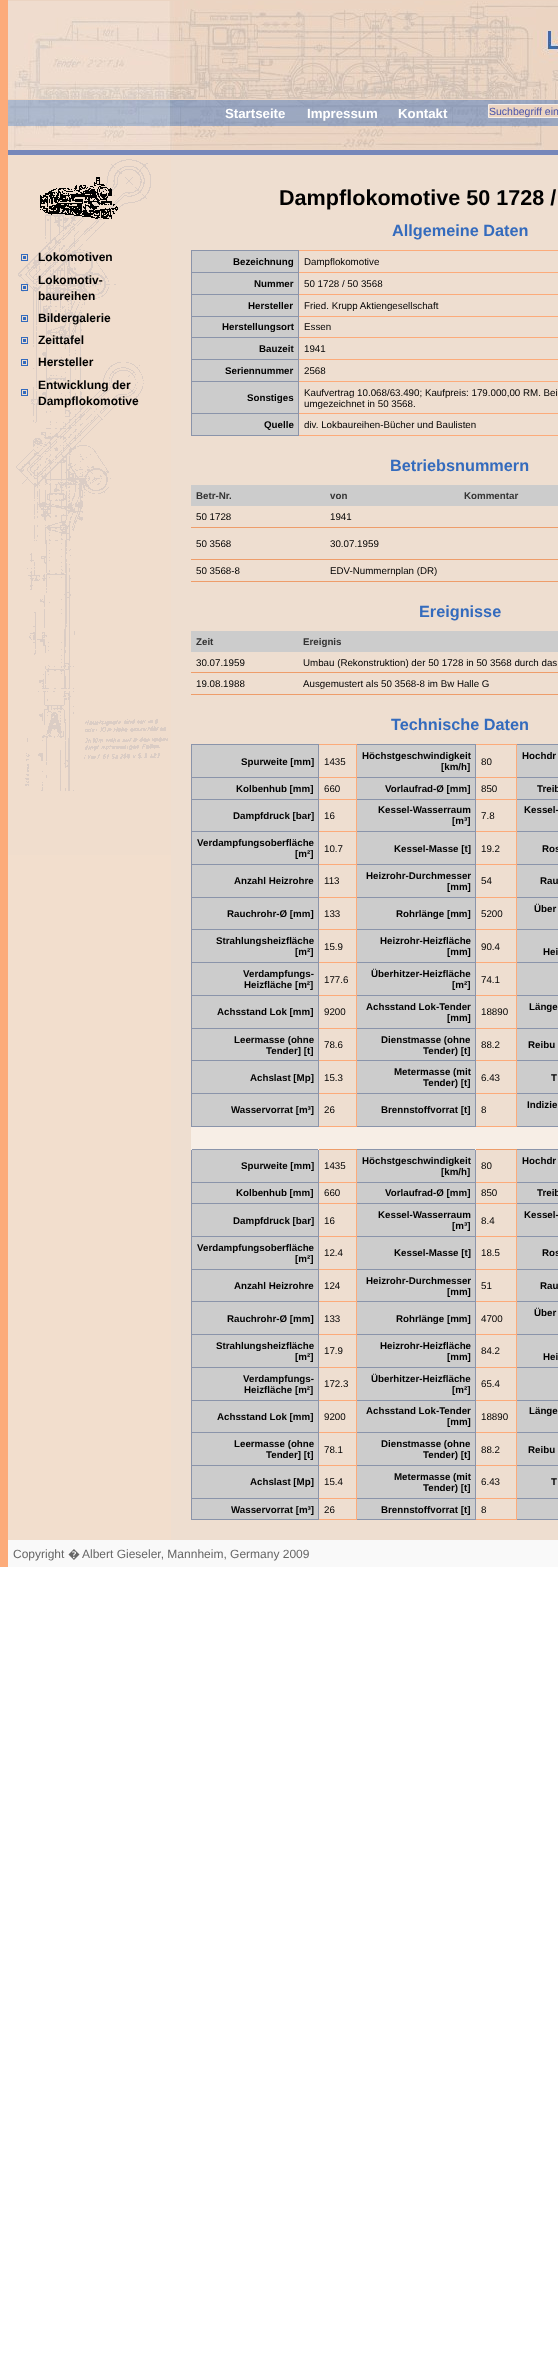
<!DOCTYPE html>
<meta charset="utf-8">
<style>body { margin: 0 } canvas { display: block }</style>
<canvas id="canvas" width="558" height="2365"></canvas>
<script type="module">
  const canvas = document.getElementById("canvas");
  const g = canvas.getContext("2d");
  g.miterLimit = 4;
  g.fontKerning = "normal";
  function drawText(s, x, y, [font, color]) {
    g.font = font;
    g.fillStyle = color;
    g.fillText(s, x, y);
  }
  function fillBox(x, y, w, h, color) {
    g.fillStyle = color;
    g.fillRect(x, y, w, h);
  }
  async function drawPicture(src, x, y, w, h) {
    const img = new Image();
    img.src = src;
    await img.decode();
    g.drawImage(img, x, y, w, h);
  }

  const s1 = ["bold 13.25px Liberation Sans", "#FFFFFF"];
  const s2 = ["10.5px Liberation Sans", "#4A54AA"];
  const s3 = ["bold 12px Liberation Sans", "#000000"];
  const s4 = ["bold 21.6px Liberation Sans", "#000000"];
  const s5 = ["bold 16.25px Liberation Sans", "#346BBD"];
  const s6 = ["bold 9.75px Liberation Sans", "#000000"];
  const s7 = ["9.75px Liberation Sans", "#000000"];
  const s8 = ["bold 9.75px Liberation Sans", "#333333"];
  const s9 = ["12px Liberation Sans", "#666666"];
  const s10 = ["12px Noto Sans", "#666666"];

  fillBox(0, 0, 558, 2365, "#FFFFFF");
  fillBox(0, 0, 8, 1567, "#FCAB7A");
  fillBox(8, 0, 550, 100, "#EBD4C2");
  await drawPicture("pic1.png", 8, 1, 550, 98);
  await drawPicture("pic2.png", 533, 30, 25, 40);
  await drawPicture("pic3.png", 8, 100, 550, 26);
  drawText("Startseite", 225, 118, s1);
  drawText("Impressum", 307, 118, s1);
  drawText("Kontakt", 398, 118, s1);
  g.fillStyle = "#EBD4C2";
  g.beginPath();
  g.rect(488.5, 104.5, 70, 13);
  g.fill();
  g.strokeStyle = "#F7EEE6";
  g.stroke();
  drawText("Suchbegriff ein", 489, 115, s2);
  fillBox(544, 126, 14, 24, "#EBD4C2");
  fillBox(8, 150, 550, 5, "#7687BA");
  await drawPicture("pic4.png", 8, 126, 536, 24);
  fillBox(8, 155, 163, 700, "#F0DDCD");
  await drawPicture("pic5.png", 16, 159, 152, 632);
  await drawPicture("pic6.png", 40, 177, 78, 42);
  await drawPicture("pic7.png", 21, 254, 7, 7);
  drawText("Lokomotiven", 38, 261, s3);
  await drawPicture("pic7.png", 21, 284, 7, 7);
  drawText("Lokomotiv-", 38, 284, s3);
  drawText("baureihen", 38, 300, s3);
  await drawPicture("pic7.png", 21, 315, 7, 7);
  drawText("Bildergalerie", 38, 322, s3);
  await drawPicture("pic7.png", 21, 337, 7, 7);
  drawText("Zeittafel", 38, 344, s3);
  await drawPicture("pic7.png", 21, 359, 7, 7);
  drawText("Hersteller", 38, 366, s3);
  await drawPicture("pic7.png", 21, 389, 7, 7);
  drawText("Entwicklung der", 38, 389, s3);
  drawText("Dampflokomotive", 38, 405, s3);
  fillBox(171, 155, 387, 1385, "#EEDED0");
  fillBox(8, 855, 163, 685, "#F2DECD");
  drawText("Dampflokomotive 50 1728 /", 279, 205, s4);
  drawText("Allgemeine Daten", 392, 236, s5);
  fillBox(192, 251, 106, 21, "#CCCCCC");
  fillBox(298, 250, 260, 1, "#FCAB7A");
  fillBox(191, 250, 108, 1, "#8A94AA");
  fillBox(191, 272, 108, 1, "#8A94AA");
  fillBox(191, 294, 108, 1, "#8A94AA");
  fillBox(191, 316, 108, 1, "#8A94AA");
  fillBox(191, 337, 108, 1, "#8A94AA");
  fillBox(191, 359, 108, 1, "#8A94AA");
  fillBox(191, 381, 108, 1, "#8A94AA");
  fillBox(191, 413, 108, 1, "#8A94AA");
  fillBox(298, 435, 260, 1, "#FCAB7A");
  fillBox(298, 413, 1, 23, "#8A94AA");
  fillBox(298, 413, 260, 1, "#FCAB7A");
  fillBox(298, 381, 1, 33, "#8A94AA");
  fillBox(298, 381, 260, 1, "#FCAB7A");
  fillBox(298, 359, 1, 23, "#8A94AA");
  fillBox(298, 359, 260, 1, "#FCAB7A");
  fillBox(298, 337, 1, 23, "#8A94AA");
  fillBox(298, 337, 260, 1, "#FCAB7A");
  fillBox(298, 316, 1, 22, "#8A94AA");
  fillBox(298, 316, 260, 1, "#FCAB7A");
  fillBox(298, 294, 1, 23, "#8A94AA");
  fillBox(298, 294, 260, 1, "#FCAB7A");
  fillBox(298, 272, 1, 23, "#8A94AA");
  fillBox(298, 272, 260, 1, "#FCAB7A");
  fillBox(298, 250, 1, 23, "#8A94AA");
  fillBox(191, 435, 108, 1, "#8A94AA");
  fillBox(191, 413, 1, 23, "#8A94AA");
  fillBox(191, 381, 1, 33, "#8A94AA");
  fillBox(191, 359, 1, 23, "#8A94AA");
  fillBox(191, 337, 1, 23, "#8A94AA");
  fillBox(191, 316, 1, 22, "#8A94AA");
  fillBox(191, 294, 1, 23, "#8A94AA");
  fillBox(191, 272, 1, 23, "#8A94AA");
  fillBox(191, 250, 1, 23, "#8A94AA");
  drawText("Bezeichnung", 233, 265, s6);
  drawText("Dampflokomotive", 304, 265, s7);
  fillBox(192, 273, 106, 21, "#CCCCCC");
  drawText("Nummer", 254, 287, s6);
  drawText("50 1728 / 50 3568", 304, 287, s7);
  fillBox(192, 295, 106, 21, "#CCCCCC");
  drawText("Hersteller", 248, 309, s6);
  drawText("Fried. Krupp Aktiengesellschaft", 304, 309, s7);
  fillBox(192, 317, 106, 20, "#CCCCCC");
  drawText("Herstellungsort", 222, 330, s6);
  drawText("Essen", 304, 330, s7);
  fillBox(192, 338, 106, 21, "#CCCCCC");
  drawText("Bauzeit", 259, 352, s6);
  drawText("1941", 304, 352, s7);
  fillBox(192, 360, 106, 21, "#CCCCCC");
  drawText("Seriennummer", 225, 374, s6);
  drawText("2568", 304, 374, s7);
  fillBox(192, 382, 106, 31, "#CCCCCC");
  drawText("Sonstiges", 247, 401, s6);
  drawText("Kaufvertrag 10.068/63.490; Kaufpreis: 179.000,00 RM. Bei", 304, 396, s7);
  drawText("umgezeichnet in 50 3568.", 304, 407, s7);
  fillBox(192, 414, 106, 21, "#CCCCCC");
  drawText("Quelle", 264, 428, s6);
  drawText("div. Lokbaureihen-Bücher und Baulisten", 304, 428, s7);
  drawText("Betriebsnummern", 390, 471, s5);
  fillBox(191, 485, 367, 21, "#CCCCCC");
  drawText("Betr-Nr.", 196, 499, s8);
  drawText("von", 330, 499, s8);
  drawText("Kommentar", 464, 499, s8);
  drawText("50 1728", 196, 520, s7);
  drawText("1941", 330, 520, s7);
  fillBox(191, 527, 367, 1, "#EE9D6A");
  drawText("50 3568", 196, 547, s7);
  drawText("30.07.1959", 330, 547, s7);
  fillBox(191, 559, 367, 1, "#EE9D6A");
  drawText("50 3568-8", 196, 574, s7);
  drawText("EDV-Nummernplan (DR)", 330, 574, s7);
  fillBox(191, 581, 367, 1, "#EE9D6A");
  drawText("Ereignisse", 419, 617, s5);
  fillBox(191, 631, 367, 21, "#CCCCCC");
  drawText("Zeit", 196, 645, s8);
  drawText("Ereignis", 303, 645, s8);
  drawText("30.07.1959", 196, 666, s7);
  fillBox(191, 672, 367, 1, "#EE9D6A");
  drawText("Umbau (Rekonstruktion) der 50 1728 in 50 3568 durch das", 303, 666, s7);
  drawText("19.08.1988", 196, 687, s7);
  fillBox(191, 694, 367, 1, "#EE9D6A");
  drawText("Ausgemustert als 50 3568-8 im Bw Halle G", 303, 687, s7);
  drawText("Technische Daten", 391, 730, s5);
  fillBox(357, 745, 118, 32, "#CCCCCC");
  fillBox(516, 744, 42, 1, "#8A94AA");
  fillBox(475, 744, 42, 1, "#FCAB7A");
  fillBox(356, 744, 120, 1, "#8A94AA");
  fillBox(516, 1149, 42, 1, "#8A94AA");
  fillBox(516, 1519, 42, 1, "#8A94AA");
  fillBox(516, 1498, 1, 22, "#FCAB7A");
  fillBox(516, 1498, 42, 1, "#8A94AA");
  fillBox(516, 1465, 1, 34, "#FCAB7A");
  fillBox(516, 1465, 42, 1, "#8A94AA");
  fillBox(516, 1432, 1, 34, "#FCAB7A");
  fillBox(516, 1432, 42, 1, "#8A94AA");
  fillBox(516, 1400, 1, 33, "#FCAB7A");
  fillBox(516, 1400, 42, 1, "#8A94AA");
  fillBox(516, 1367, 1, 34, "#FCAB7A");
  fillBox(516, 1367, 42, 1, "#8A94AA");
  fillBox(516, 1334, 1, 34, "#FCAB7A");
  fillBox(516, 1334, 42, 1, "#8A94AA");
  fillBox(516, 1301, 1, 34, "#FCAB7A");
  fillBox(516, 1301, 42, 1, "#8A94AA");
  fillBox(516, 1269, 1, 33, "#FCAB7A");
  fillBox(516, 1269, 42, 1, "#8A94AA");
  fillBox(516, 1236, 1, 34, "#FCAB7A");
  fillBox(516, 1236, 42, 1, "#8A94AA");
  fillBox(516, 1203, 1, 34, "#FCAB7A");
  fillBox(516, 1203, 42, 1, "#8A94AA");
  fillBox(516, 1182, 1, 22, "#FCAB7A");
  fillBox(516, 1182, 42, 1, "#8A94AA");
  fillBox(516, 1149, 1, 34, "#FCAB7A");
  fillBox(516, 1126, 1, 24, "#F7EEE6");
  fillBox(516, 1126, 42, 1, "#8A94AA");
  fillBox(516, 1093, 1, 34, "#FCAB7A");
  fillBox(516, 1093, 42, 1, "#8A94AA");
  fillBox(516, 1060, 1, 34, "#FCAB7A");
  fillBox(516, 1060, 42, 1, "#8A94AA");
  fillBox(516, 1028, 1, 33, "#FCAB7A");
  fillBox(516, 1028, 42, 1, "#8A94AA");
  fillBox(516, 995, 1, 34, "#FCAB7A");
  fillBox(516, 995, 42, 1, "#8A94AA");
  fillBox(516, 962, 1, 34, "#FCAB7A");
  fillBox(516, 962, 42, 1, "#8A94AA");
  fillBox(516, 929, 1, 34, "#FCAB7A");
  fillBox(516, 929, 42, 1, "#8A94AA");
  fillBox(516, 897, 1, 33, "#FCAB7A");
  fillBox(516, 897, 42, 1, "#8A94AA");
  fillBox(516, 864, 1, 34, "#FCAB7A");
  fillBox(516, 864, 42, 1, "#8A94AA");
  fillBox(516, 831, 1, 34, "#FCAB7A");
  fillBox(516, 831, 42, 1, "#8A94AA");
  fillBox(516, 799, 1, 33, "#FCAB7A");
  fillBox(516, 799, 42, 1, "#8A94AA");
  fillBox(516, 777, 1, 23, "#FCAB7A");
  fillBox(516, 777, 42, 1, "#8A94AA");
  fillBox(516, 744, 1, 34, "#FCAB7A");
  fillBox(356, 1149, 120, 1, "#8A94AA");
  fillBox(475, 1519, 42, 1, "#FCAB7A");
  fillBox(475, 1498, 1, 22, "#8A94AA");
  fillBox(475, 1498, 42, 1, "#FCAB7A");
  fillBox(475, 1465, 1, 34, "#8A94AA");
  fillBox(475, 1465, 42, 1, "#FCAB7A");
  fillBox(475, 1432, 1, 34, "#8A94AA");
  fillBox(475, 1432, 42, 1, "#FCAB7A");
  fillBox(475, 1400, 1, 33, "#8A94AA");
  fillBox(475, 1400, 42, 1, "#FCAB7A");
  fillBox(475, 1367, 1, 34, "#8A94AA");
  fillBox(475, 1367, 42, 1, "#FCAB7A");
  fillBox(475, 1334, 1, 34, "#8A94AA");
  fillBox(475, 1334, 42, 1, "#FCAB7A");
  fillBox(475, 1301, 1, 34, "#8A94AA");
  fillBox(475, 1301, 42, 1, "#FCAB7A");
  fillBox(475, 1269, 1, 33, "#8A94AA");
  fillBox(475, 1269, 42, 1, "#FCAB7A");
  fillBox(475, 1236, 1, 34, "#8A94AA");
  fillBox(475, 1236, 42, 1, "#FCAB7A");
  fillBox(475, 1203, 1, 34, "#8A94AA");
  fillBox(475, 1203, 42, 1, "#FCAB7A");
  fillBox(475, 1182, 1, 22, "#8A94AA");
  fillBox(475, 1182, 42, 1, "#FCAB7A");
  fillBox(475, 1149, 1, 34, "#8A94AA");
  fillBox(475, 1149, 42, 1, "#EE9D6A");
  fillBox(475, 1126, 1, 24, "#F7EEE6");
  fillBox(475, 1126, 42, 1, "#FCAB7A");
  fillBox(475, 1093, 1, 34, "#8A94AA");
  fillBox(475, 1093, 42, 1, "#FCAB7A");
  fillBox(475, 1060, 1, 34, "#8A94AA");
  fillBox(475, 1060, 42, 1, "#FCAB7A");
  fillBox(475, 1028, 1, 33, "#8A94AA");
  fillBox(475, 1028, 42, 1, "#FCAB7A");
  fillBox(475, 995, 1, 34, "#8A94AA");
  fillBox(475, 995, 42, 1, "#FCAB7A");
  fillBox(475, 962, 1, 34, "#8A94AA");
  fillBox(475, 962, 42, 1, "#FCAB7A");
  fillBox(475, 929, 1, 34, "#8A94AA");
  fillBox(475, 929, 42, 1, "#FCAB7A");
  fillBox(475, 897, 1, 33, "#8A94AA");
  fillBox(475, 897, 42, 1, "#FCAB7A");
  fillBox(475, 864, 1, 34, "#8A94AA");
  fillBox(475, 864, 42, 1, "#FCAB7A");
  fillBox(475, 831, 1, 34, "#8A94AA");
  fillBox(475, 831, 42, 1, "#FCAB7A");
  fillBox(475, 799, 1, 33, "#8A94AA");
  fillBox(475, 799, 42, 1, "#FCAB7A");
  fillBox(475, 777, 1, 23, "#8A94AA");
  fillBox(475, 777, 42, 1, "#FCAB7A");
  fillBox(475, 744, 1, 34, "#8A94AA");
  fillBox(356, 1519, 120, 1, "#8A94AA");
  fillBox(356, 1498, 1, 22, "#FCAB7A");
  fillBox(356, 1498, 120, 1, "#8A94AA");
  fillBox(356, 1465, 1, 34, "#FCAB7A");
  fillBox(356, 1465, 120, 1, "#8A94AA");
  fillBox(356, 1432, 1, 34, "#FCAB7A");
  fillBox(356, 1432, 120, 1, "#8A94AA");
  fillBox(356, 1400, 1, 33, "#FCAB7A");
  fillBox(356, 1400, 120, 1, "#8A94AA");
  fillBox(356, 1367, 1, 34, "#FCAB7A");
  fillBox(356, 1367, 120, 1, "#8A94AA");
  fillBox(356, 1334, 1, 34, "#FCAB7A");
  fillBox(356, 1334, 120, 1, "#8A94AA");
  fillBox(356, 1301, 1, 34, "#FCAB7A");
  fillBox(356, 1301, 120, 1, "#8A94AA");
  fillBox(356, 1269, 1, 33, "#FCAB7A");
  fillBox(356, 1269, 120, 1, "#8A94AA");
  fillBox(356, 1236, 1, 34, "#FCAB7A");
  fillBox(356, 1236, 120, 1, "#8A94AA");
  fillBox(356, 1203, 1, 34, "#FCAB7A");
  fillBox(356, 1203, 120, 1, "#8A94AA");
  fillBox(356, 1182, 1, 22, "#FCAB7A");
  fillBox(356, 1182, 120, 1, "#8A94AA");
  fillBox(356, 1149, 1, 34, "#FCAB7A");
  fillBox(356, 1126, 1, 24, "#F7EEE6");
  fillBox(356, 1126, 120, 1, "#8A94AA");
  fillBox(356, 1093, 1, 34, "#FCAB7A");
  fillBox(356, 1093, 120, 1, "#8A94AA");
  fillBox(356, 1060, 1, 34, "#FCAB7A");
  fillBox(356, 1060, 120, 1, "#8A94AA");
  fillBox(356, 1028, 1, 33, "#FCAB7A");
  fillBox(356, 1028, 120, 1, "#8A94AA");
  fillBox(356, 995, 1, 34, "#FCAB7A");
  fillBox(356, 995, 120, 1, "#8A94AA");
  fillBox(356, 962, 1, 34, "#FCAB7A");
  fillBox(356, 962, 120, 1, "#8A94AA");
  fillBox(356, 929, 1, 34, "#FCAB7A");
  fillBox(356, 929, 120, 1, "#8A94AA");
  fillBox(356, 897, 1, 33, "#FCAB7A");
  fillBox(356, 897, 120, 1, "#8A94AA");
  fillBox(356, 864, 1, 34, "#FCAB7A");
  fillBox(356, 864, 120, 1, "#8A94AA");
  fillBox(356, 831, 1, 34, "#FCAB7A");
  fillBox(356, 831, 120, 1, "#8A94AA");
  fillBox(356, 799, 1, 33, "#FCAB7A");
  fillBox(356, 799, 120, 1, "#8A94AA");
  fillBox(356, 777, 1, 23, "#FCAB7A");
  fillBox(356, 777, 120, 1, "#8A94AA");
  drawText("Höchstgeschwindigkeit", 362, 759, s6);
  drawText("[km/h]", 441, 770, s6);
  fillBox(517, 745, 41, 32, "#CCCCCC");
  drawText("Hochdr", 522, 759, s6);
  fillBox(192, 745, 126, 32, "#CCCCCC");
  fillBox(318, 744, 39, 1, "#FCAB7A");
  fillBox(191, 744, 128, 1, "#8A94AA");
  fillBox(356, 744, 1, 34, "#FCAB7A");
  fillBox(191, 777, 128, 1, "#8A94AA");
  fillBox(191, 799, 128, 1, "#8A94AA");
  fillBox(191, 831, 128, 1, "#8A94AA");
  fillBox(191, 864, 128, 1, "#8A94AA");
  fillBox(191, 897, 128, 1, "#8A94AA");
  fillBox(191, 929, 128, 1, "#8A94AA");
  fillBox(191, 962, 128, 1, "#8A94AA");
  fillBox(191, 995, 128, 1, "#8A94AA");
  fillBox(191, 1028, 128, 1, "#8A94AA");
  fillBox(191, 1060, 128, 1, "#8A94AA");
  fillBox(191, 1093, 128, 1, "#8A94AA");
  fillBox(191, 1149, 128, 1, "#8A94AA");
  fillBox(191, 1182, 128, 1, "#8A94AA");
  fillBox(191, 1203, 128, 1, "#8A94AA");
  fillBox(191, 1236, 128, 1, "#8A94AA");
  fillBox(191, 1269, 128, 1, "#8A94AA");
  fillBox(191, 1301, 128, 1, "#8A94AA");
  fillBox(191, 1334, 128, 1, "#8A94AA");
  fillBox(191, 1367, 128, 1, "#8A94AA");
  fillBox(191, 1400, 128, 1, "#8A94AA");
  fillBox(191, 1432, 128, 1, "#8A94AA");
  fillBox(191, 1465, 128, 1, "#8A94AA");
  fillBox(191, 1498, 128, 1, "#8A94AA");
  fillBox(318, 1519, 39, 1, "#FCAB7A");
  fillBox(318, 1498, 1, 22, "#8A94AA");
  fillBox(318, 1498, 39, 1, "#FCAB7A");
  fillBox(318, 1465, 1, 34, "#8A94AA");
  fillBox(318, 1465, 39, 1, "#FCAB7A");
  fillBox(318, 1432, 1, 34, "#8A94AA");
  fillBox(318, 1432, 39, 1, "#FCAB7A");
  fillBox(318, 1400, 1, 33, "#8A94AA");
  fillBox(318, 1400, 39, 1, "#FCAB7A");
  fillBox(318, 1367, 1, 34, "#8A94AA");
  fillBox(318, 1367, 39, 1, "#FCAB7A");
  fillBox(318, 1334, 1, 34, "#8A94AA");
  fillBox(318, 1334, 39, 1, "#FCAB7A");
  fillBox(318, 1301, 1, 34, "#8A94AA");
  fillBox(318, 1301, 39, 1, "#FCAB7A");
  fillBox(318, 1269, 1, 33, "#8A94AA");
  fillBox(318, 1269, 39, 1, "#FCAB7A");
  fillBox(318, 1236, 1, 34, "#8A94AA");
  fillBox(318, 1236, 39, 1, "#FCAB7A");
  fillBox(318, 1203, 1, 34, "#8A94AA");
  fillBox(318, 1203, 39, 1, "#FCAB7A");
  fillBox(318, 1182, 1, 22, "#8A94AA");
  fillBox(318, 1182, 39, 1, "#FCAB7A");
  fillBox(318, 1149, 1, 34, "#8A94AA");
  fillBox(318, 1149, 39, 1, "#EE9D6A");
  fillBox(318, 1126, 1, 24, "#F7EEE6");
  fillBox(318, 1126, 39, 1, "#FCAB7A");
  fillBox(318, 1093, 1, 34, "#8A94AA");
  fillBox(318, 1093, 39, 1, "#FCAB7A");
  fillBox(318, 1060, 1, 34, "#8A94AA");
  fillBox(318, 1060, 39, 1, "#FCAB7A");
  fillBox(318, 1028, 1, 33, "#8A94AA");
  fillBox(318, 1028, 39, 1, "#FCAB7A");
  fillBox(318, 995, 1, 34, "#8A94AA");
  fillBox(318, 995, 39, 1, "#FCAB7A");
  fillBox(318, 962, 1, 34, "#8A94AA");
  fillBox(318, 962, 39, 1, "#FCAB7A");
  fillBox(318, 929, 1, 34, "#8A94AA");
  fillBox(318, 929, 39, 1, "#FCAB7A");
  fillBox(318, 897, 1, 33, "#8A94AA");
  fillBox(318, 897, 39, 1, "#FCAB7A");
  fillBox(318, 864, 1, 34, "#8A94AA");
  fillBox(318, 864, 39, 1, "#FCAB7A");
  fillBox(318, 831, 1, 34, "#8A94AA");
  fillBox(318, 831, 39, 1, "#FCAB7A");
  fillBox(318, 799, 1, 33, "#8A94AA");
  fillBox(318, 799, 39, 1, "#FCAB7A");
  fillBox(318, 777, 1, 23, "#8A94AA");
  fillBox(318, 777, 39, 1, "#FCAB7A");
  fillBox(318, 744, 1, 34, "#8A94AA");
  fillBox(191, 1519, 128, 1, "#8A94AA");
  fillBox(191, 1498, 1, 22, "#8A94AA");
  fillBox(191, 1465, 1, 34, "#8A94AA");
  fillBox(191, 1432, 1, 34, "#8A94AA");
  fillBox(191, 1400, 1, 33, "#8A94AA");
  fillBox(191, 1367, 1, 34, "#8A94AA");
  fillBox(191, 1334, 1, 34, "#8A94AA");
  fillBox(191, 1301, 1, 34, "#8A94AA");
  fillBox(191, 1269, 1, 33, "#8A94AA");
  fillBox(191, 1236, 1, 34, "#8A94AA");
  fillBox(191, 1203, 1, 34, "#8A94AA");
  fillBox(191, 1182, 1, 22, "#8A94AA");
  fillBox(191, 1149, 1, 34, "#8A94AA");
  fillBox(191, 1126, 1, 24, "#F7EEE6");
  fillBox(191, 1126, 128, 1, "#8A94AA");
  fillBox(191, 1093, 1, 34, "#8A94AA");
  fillBox(191, 1060, 1, 34, "#8A94AA");
  fillBox(191, 1028, 1, 33, "#8A94AA");
  fillBox(191, 995, 1, 34, "#8A94AA");
  fillBox(191, 962, 1, 34, "#8A94AA");
  fillBox(191, 929, 1, 34, "#8A94AA");
  fillBox(191, 897, 1, 33, "#8A94AA");
  fillBox(191, 864, 1, 34, "#8A94AA");
  fillBox(191, 831, 1, 34, "#8A94AA");
  fillBox(191, 799, 1, 33, "#8A94AA");
  fillBox(191, 777, 1, 23, "#8A94AA");
  fillBox(191, 744, 1, 34, "#8A94AA");
  drawText("Spurweite [mm]", 241, 765, s6);
  drawText("1435", 324, 765, s7);
  drawText("80", 481, 765, s7);
  fillBox(192, 778, 126, 21, "#CCCCCC");
  drawText("Kolbenhub [mm]", 236, 792, s6);
  drawText("660", 324, 792, s7);
  fillBox(357, 778, 118, 21, "#CCCCCC");
  drawText("Vorlaufrad-Ø [mm]", 385, 792, s6);
  drawText("850", 481, 792, s7);
  fillBox(517, 778, 41, 21, "#CCCCCC");
  drawText("Treib", 537, 792, s6);
  fillBox(357, 800, 118, 31, "#CCCCCC");
  drawText("Kessel-Wasserraum", 378, 813, s6);
  drawText("[m³]", 452, 824, s6);
  fillBox(517, 800, 41, 31, "#CCCCCC");
  drawText("Kessel-", 524, 813, s6);
  fillBox(192, 800, 126, 31, "#CCCCCC");
  drawText("Dampfdruck [bar]", 233, 819, s6);
  drawText("16", 324, 819, s7);
  drawText("7.8", 481, 819, s7);
  fillBox(192, 832, 126, 32, "#CCCCCC");
  drawText("Verdampfungsoberfläche", 197, 846, s6);
  drawText("[m²]", 295, 857, s6);
  drawText("10.7", 324, 852, s7);
  fillBox(357, 832, 118, 32, "#CCCCCC");
  drawText("Kessel-Masse [t]", 394, 852, s6);
  drawText("19.2", 481, 852, s7);
  fillBox(517, 832, 41, 32, "#CCCCCC");
  drawText("Ros", 542, 852, s6);
  fillBox(192, 865, 126, 32, "#CCCCCC");
  drawText("Anzahl Heizrohre", 234, 884, s6);
  drawText("113", 324, 884, s7);
  fillBox(357, 865, 118, 32, "#CCCCCC");
  drawText("Heizrohr-Durchmesser", 366, 879, s6);
  drawText("[mm]", 447, 890, s6);
  drawText("54", 481, 884, s7);
  fillBox(517, 865, 41, 32, "#CCCCCC");
  drawText("Rau", 540, 884, s6);
  fillBox(517, 898, 41, 31, "#CCCCCC");
  drawText("Über", 534, 912, s6);
  fillBox(192, 898, 126, 31, "#CCCCCC");
  drawText("Rauchrohr-Ø [mm]", 227, 917, s6);
  drawText("133", 324, 917, s7);
  fillBox(357, 898, 118, 31, "#CCCCCC");
  drawText("Rohrlänge [mm]", 396, 917, s6);
  drawText("5200", 481, 917, s7);
  fillBox(192, 930, 126, 32, "#CCCCCC");
  drawText("Strahlungsheizfläche", 216, 944, s6);
  drawText("[m²]", 295, 955, s6);
  drawText("15.9", 324, 950, s7);
  fillBox(357, 930, 118, 32, "#CCCCCC");
  drawText("Heizrohr-Heizfläche", 380, 944, s6);
  drawText("[mm]", 447, 955, s6);
  drawText("90.4", 481, 950, s7);
  fillBox(517, 930, 41, 32, "#CCCCCC");
  drawText("Hei", 543, 955, s6);
  fillBox(192, 963, 126, 32, "#CCCCCC");
  drawText("Verdampfungs-", 243, 977, s6);
  drawText("Heizfläche [m²]", 244, 988, s6);
  drawText("177.6", 324, 983, s7);
  fillBox(357, 963, 118, 32, "#CCCCCC");
  drawText("Überhitzer-Heizfläche", 371, 977, s6);
  drawText("[m²]", 452, 988, s6);
  drawText("74.1", 481, 983, s7);
  fillBox(517, 963, 41, 32, "#CCCCCC");
  fillBox(192, 996, 126, 32, "#CCCCCC");
  drawText("Achsstand Lok [mm]", 217, 1015, s6);
  drawText("9200", 324, 1015, s7);
  fillBox(357, 996, 118, 32, "#CCCCCC");
  drawText("Achsstand Lok-Tender", 366, 1010, s6);
  drawText("[mm]", 447, 1021, s6);
  drawText("18890", 481, 1015, s7);
  fillBox(517, 996, 41, 32, "#CCCCCC");
  drawText("Länge", 529, 1010, s6);
  fillBox(192, 1029, 126, 31, "#CCCCCC");
  drawText("Leermasse (ohne", 234, 1043, s6);
  drawText("Tender] [t]", 266, 1054, s6);
  drawText("78.6", 324, 1048, s7);
  fillBox(357, 1029, 118, 31, "#CCCCCC");
  drawText("Dienstmasse (ohne", 381, 1043, s6);
  drawText("Tender) [t]", 423, 1054, s6);
  drawText("88.2", 481, 1048, s7);
  fillBox(517, 1029, 41, 31, "#CCCCCC");
  drawText("Reibu", 528, 1048, s6);
  fillBox(192, 1061, 126, 32, "#CCCCCC");
  drawText("Achslast [Mp]", 250, 1081, s6);
  drawText("15.3", 324, 1081, s7);
  fillBox(357, 1061, 118, 32, "#CCCCCC");
  drawText("Metermasse (mit", 394, 1075, s6);
  drawText("Tender) [t]", 423, 1086, s6);
  drawText("6.43", 481, 1081, s7);
  fillBox(517, 1061, 41, 32, "#CCCCCC");
  drawText("T", 551, 1081, s6);
  fillBox(192, 1094, 126, 32, "#CCCCCC");
  drawText("Wasservorrat [m³]", 231, 1113, s6);
  drawText("26", 324, 1113, s7);
  fillBox(357, 1094, 118, 32, "#CCCCCC");
  drawText("Brennstoffvorrat [t]", 381, 1113, s6);
  drawText("8", 481, 1113, s7);
  fillBox(517, 1094, 41, 32, "#CCCCCC");
  drawText("Indizie", 527, 1108, s6);
  fillBox(192, 1127, 126, 22, "#F7EEE6");
  fillBox(319, 1127, 37, 22, "#F7EEE6");
  fillBox(357, 1127, 118, 22, "#F7EEE6");
  fillBox(476, 1127, 40, 22, "#F7EEE6");
  fillBox(517, 1127, 41, 22, "#F7EEE6");
  fillBox(192, 1150, 126, 32, "#CCCCCC");
  drawText("Spurweite [mm]", 241, 1169, s6);
  drawText("1435", 324, 1169, s7);
  fillBox(357, 1150, 118, 32, "#CCCCCC");
  drawText("Höchstgeschwindigkeit", 362, 1164, s6);
  drawText("[km/h]", 441, 1175, s6);
  drawText("80", 481, 1169, s7);
  fillBox(517, 1150, 41, 32, "#CCCCCC");
  drawText("Hochdr", 522, 1164, s6);
  fillBox(192, 1183, 126, 20, "#CCCCCC");
  drawText("Kolbenhub [mm]", 236, 1196, s6);
  drawText("660", 324, 1196, s7);
  fillBox(357, 1183, 118, 20, "#CCCCCC");
  drawText("Vorlaufrad-Ø [mm]", 385, 1196, s6);
  drawText("850", 481, 1196, s7);
  fillBox(517, 1183, 41, 20, "#CCCCCC");
  drawText("Treib", 537, 1196, s6);
  fillBox(357, 1204, 118, 32, "#CCCCCC");
  drawText("Kessel-Wasserraum", 378, 1218, s6);
  drawText("[m³]", 452, 1229, s6);
  fillBox(517, 1204, 41, 32, "#CCCCCC");
  drawText("Kessel-", 524, 1218, s6);
  fillBox(192, 1204, 126, 32, "#CCCCCC");
  drawText("Dampfdruck [bar]", 233, 1224, s6);
  drawText("16", 324, 1224, s7);
  drawText("8.4", 481, 1224, s7);
  fillBox(192, 1237, 126, 32, "#CCCCCC");
  drawText("Verdampfungsoberfläche", 197, 1251, s6);
  drawText("[m²]", 295, 1262, s6);
  drawText("12.4", 324, 1256, s7);
  fillBox(357, 1237, 118, 32, "#CCCCCC");
  drawText("Kessel-Masse [t]", 394, 1256, s6);
  drawText("18.5", 481, 1256, s7);
  fillBox(517, 1237, 41, 32, "#CCCCCC");
  drawText("Ros", 542, 1256, s6);
  fillBox(192, 1270, 126, 31, "#CCCCCC");
  drawText("Anzahl Heizrohre", 234, 1289, s6);
  drawText("124", 324, 1289, s7);
  fillBox(357, 1270, 118, 31, "#CCCCCC");
  drawText("Heizrohr-Durchmesser", 366, 1284, s6);
  drawText("[mm]", 447, 1295, s6);
  drawText("51", 481, 1289, s7);
  fillBox(517, 1270, 41, 31, "#CCCCCC");
  drawText("Rau", 540, 1289, s6);
  fillBox(517, 1302, 41, 32, "#CCCCCC");
  drawText("Über", 534, 1316, s6);
  fillBox(192, 1302, 126, 32, "#CCCCCC");
  drawText("Rauchrohr-Ø [mm]", 227, 1322, s6);
  drawText("133", 324, 1322, s7);
  fillBox(357, 1302, 118, 32, "#CCCCCC");
  drawText("Rohrlänge [mm]", 396, 1322, s6);
  drawText("4700", 481, 1322, s7);
  fillBox(192, 1335, 126, 32, "#CCCCCC");
  drawText("Strahlungsheizfläche", 216, 1349, s6);
  drawText("[m²]", 295, 1360, s6);
  drawText("17.9", 324, 1354, s7);
  fillBox(357, 1335, 118, 32, "#CCCCCC");
  drawText("Heizrohr-Heizfläche", 380, 1349, s6);
  drawText("[mm]", 447, 1360, s6);
  drawText("84.2", 481, 1354, s7);
  fillBox(517, 1335, 41, 32, "#CCCCCC");
  drawText("Hei", 543, 1360, s6);
  fillBox(192, 1368, 126, 32, "#CCCCCC");
  drawText("Verdampfungs-", 243, 1382, s6);
  drawText("Heizfläche [m²]", 244, 1393, s6);
  drawText("172.3", 324, 1387, s7);
  fillBox(357, 1368, 118, 32, "#CCCCCC");
  drawText("Überhitzer-Heizfläche", 371, 1382, s6);
  drawText("[m²]", 452, 1393, s6);
  drawText("65.4", 481, 1387, s7);
  fillBox(517, 1368, 41, 32, "#CCCCCC");
  fillBox(192, 1401, 126, 31, "#CCCCCC");
  drawText("Achsstand Lok [mm]", 217, 1420, s6);
  drawText("9200", 324, 1420, s7);
  fillBox(357, 1401, 118, 31, "#CCCCCC");
  drawText("Achsstand Lok-Tender", 366, 1414, s6);
  drawText("[mm]", 447, 1425, s6);
  drawText("18890", 481, 1420, s7);
  fillBox(517, 1401, 41, 31, "#CCCCCC");
  drawText("Länge", 529, 1414, s6);
  fillBox(192, 1433, 126, 32, "#CCCCCC");
  drawText("Leermasse (ohne", 234, 1447, s6);
  drawText("Tender] [t]", 266, 1458, s6);
  drawText("78.1", 324, 1453, s7);
  fillBox(357, 1433, 118, 32, "#CCCCCC");
  drawText("Dienstmasse (ohne", 381, 1447, s6);
  drawText("Tender) [t]", 423, 1458, s6);
  drawText("88.2", 481, 1453, s7);
  fillBox(517, 1433, 41, 32, "#CCCCCC");
  drawText("Reibu", 528, 1453, s6);
  fillBox(192, 1466, 126, 32, "#CCCCCC");
  drawText("Achslast [Mp]", 250, 1485, s6);
  drawText("15.4", 324, 1485, s7);
  fillBox(357, 1466, 118, 32, "#CCCCCC");
  drawText("Metermasse (mit", 394, 1480, s6);
  drawText("Tender) [t]", 423, 1491, s6);
  drawText("6.43", 481, 1485, s7);
  fillBox(517, 1466, 41, 32, "#CCCCCC");
  drawText("T", 551, 1485, s6);
  fillBox(192, 1499, 126, 20, "#CCCCCC");
  drawText("Wasservorrat [m³]", 231, 1513, s6);
  drawText("26", 324, 1513, s7);
  fillBox(357, 1499, 118, 20, "#CCCCCC");
  drawText("Brennstoffvorrat [t]", 381, 1513, s6);
  drawText("8", 481, 1513, s7);
  fillBox(517, 1499, 41, 20, "#CCCCCC");
  fillBox(8, 1540, 550, 27, "#F9F9F9");
  drawText("Copyright", 13, 1558, s9);
  drawText("�", 68, 1558, s10);
  drawText("Albert Gieseler, Mannheim, Germany 2009", 82, 1558, s9);
</script>
